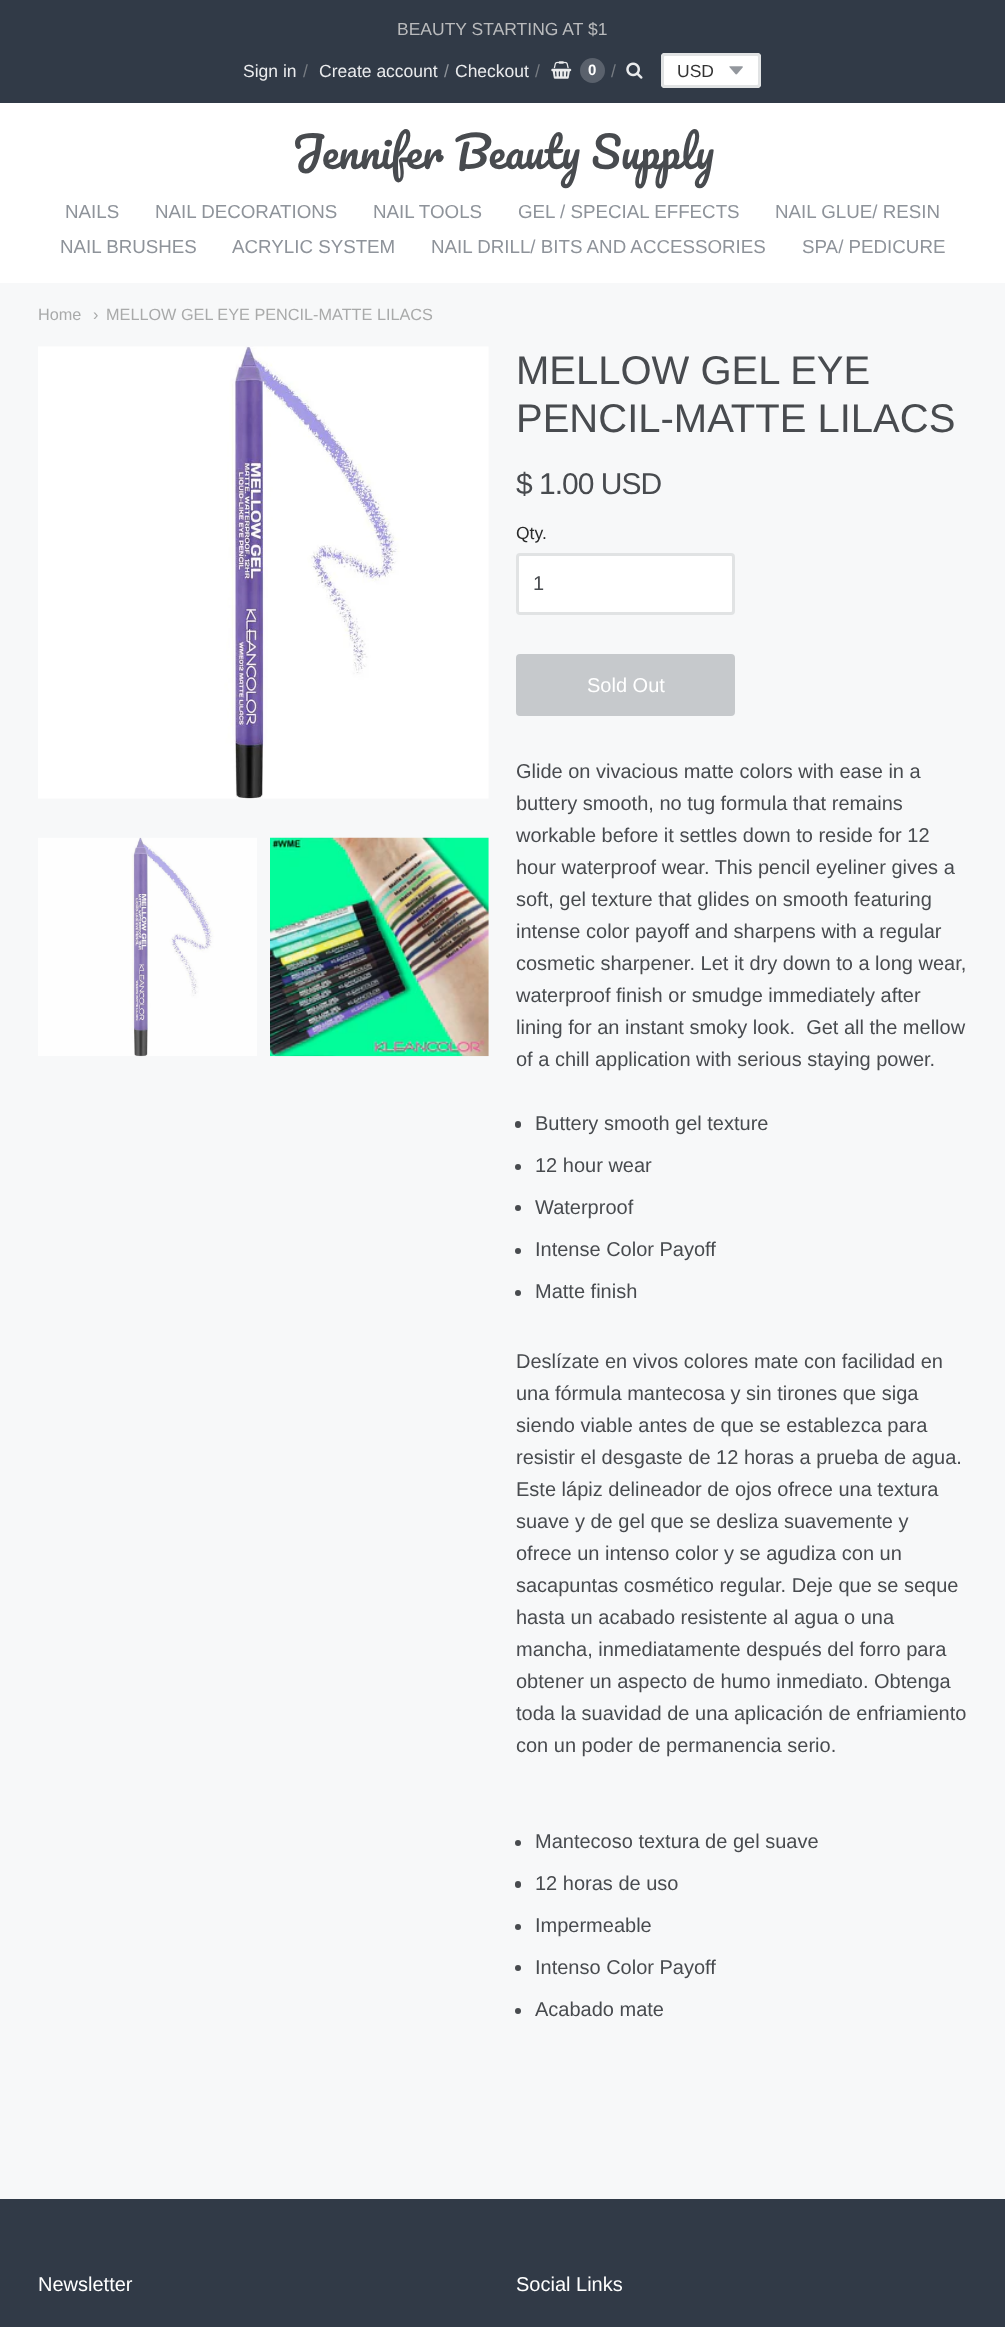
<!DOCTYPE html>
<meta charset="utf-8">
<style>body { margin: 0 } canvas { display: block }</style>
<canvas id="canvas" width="1005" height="2327"></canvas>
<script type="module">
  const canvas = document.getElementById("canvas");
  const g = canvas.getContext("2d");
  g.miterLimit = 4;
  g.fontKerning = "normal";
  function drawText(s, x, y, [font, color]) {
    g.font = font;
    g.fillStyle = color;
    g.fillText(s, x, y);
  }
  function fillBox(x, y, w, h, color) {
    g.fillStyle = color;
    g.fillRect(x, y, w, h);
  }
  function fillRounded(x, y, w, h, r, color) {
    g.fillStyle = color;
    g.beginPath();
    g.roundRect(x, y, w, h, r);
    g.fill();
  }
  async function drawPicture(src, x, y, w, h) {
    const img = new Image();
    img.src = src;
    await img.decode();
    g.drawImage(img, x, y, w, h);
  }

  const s1 = ["17.5px Liberation Sans", "#BABBBD"];
  const s2 = ["17.5px Liberation Sans", "#EAEBED"];
  const s3 = ["17.5px Liberation Sans", "#767B82"];
  const s4 = ["17.5px Liberation Sans", "#8E939A"];
  const s5 = ["bold 15px Liberation Sans", "#FFFFFF"];
  const s6 = ["17.5px Liberation Sans", "#333333"];
  const s7 = ["42.5px Pacifico", "#484B4F"];
  const s8 = ["18.75px Liberation Sans", "#8E939A"];
  const s9 = ["16.25px Liberation Sans", "#A9AAAA"];
  const s10 = ["40px Liberation Sans", "#484B4F"];
  const s11 = ["30px Liberation Sans", "#484B4F"];
  const s12 = ["17.5px Liberation Sans", "#2A2B2B"];
  const s13 = ["20px Liberation Sans", "#484B4F"];
  const s14 = ["20px Liberation Sans", "#FFFFFF"];

  fillBox(0, 0, 1005, 2327, "#313A47");
  drawText("BEAUTY STARTING AT $1", 397, 35, s1);
  drawText("Sign in", 243, 77, s2);
  drawText("/", 303, 77, s3);
  drawText("Create account", 319, 77, s2);
  drawText("/", 444, 77, s4);
  drawText("Checkout", 455, 77, s2);
  drawText("/", 535, 77, s3);
  await drawPicture("pic1.png", 551, 61, 21, 18);
  g.fillStyle = "#5A616C";
  g.beginPath();
  g.arc(592.5, 70.5, 12.5, 0, Math.PI * 2);
  g.fill();
  drawText("0", 588, 75, s5);
  drawText("/", 611, 77, s3);
  await drawPicture("pic2.png", 626, 62, 17, 17);
  fillRounded(661, 53, 100, 35, 4, "#FFFFFF");
  await drawPicture("pic3.png", 729, 66, 14, 9);
  g.beginPath();
  g.roundRect(662.5, 54.5, 97, 32, 2.5);
  g.strokeStyle = "#E1E3E4";
  g.lineWidth = 3;
  g.stroke();
  drawText("USD", 677, 77, s6);
  fillBox(0, 103, 1005, 180, "#FFFFFF");
  drawText("Jennifer Beauty Supply", 292, 169, s7);
  drawText("NAILS", 65, 218, s8);
  drawText("NAIL DECORATIONS", 155, 218, s8);
  drawText("NAIL TOOLS", 373, 218, s8);
  drawText("GEL / SPECIAL EFFECTS", 518, 218, s8);
  drawText("NAIL GLUE/ RESIN", 775, 218, s8);
  drawText("NAIL BRUSHES", 60, 253, s8);
  drawText("ACRYLIC SYSTEM", 232, 253, s8);
  drawText("NAIL DRILL/ BITS AND ACCESSORIES", 431, 253, s8);
  drawText("SPA/ PEDICURE", 802, 253, s8);
  fillBox(0, 283, 1005, 1916, "#F7F8F9");
  drawText("Home", 38, 320, s9);
  drawText("›", 93, 320, s9);
  drawText("MELLOW GEL EYE PENCIL-MATTE LILACS", 106, 320, s9);
  await drawPicture("pic4.png", 38, 346, 451, 453);
  await drawPicture("pic5.png", 38, 837, 219, 220);
  await drawPicture("pic6.png", 270, 837, 219, 220);
  drawText("MELLOW GEL EYE", 516, 384, s10);
  drawText("PENCIL-MATTE LILACS", 516, 432, s10);
  g.letterSpacing = "-1px";
  drawText("$ 1.00 USD", 516, 494, s11);
  g.letterSpacing = "0px";
  drawText("Qty.", 516, 539, s12);
  g.fillStyle = "#FFFFFF";
  g.beginPath();
  g.roundRect(517.5, 554.5, 216, 59, 2.5);
  g.fill();
  g.stroke();
  drawText("1", 533, 590, s13);
  g.fillStyle = "#C6C9CC";
  g.beginPath();
  g.roundRect(517.5, 655.5, 216, 59, 2.5);
  g.fill();
  g.strokeStyle = "#C6C9CC";
  g.stroke();
  drawText("Sold Out", 587, 692, s14);
  drawText("Glide on vivacious matte colors with ease in a", 516, 778, s13);
  drawText("buttery smooth, no tug formula that remains", 516, 810, s13);
  drawText("workable before it settles down to reside for 12", 516, 842, s13);
  drawText("hour waterproof wear. This pencil eyeliner gives a", 516, 874, s13);
  drawText("soft, gel texture that glides on smooth featuring", 516, 906, s13);
  drawText("intense color payoff and sharpens with a regular", 516, 938, s13);
  drawText("cosmetic sharpener. Let it dry down to a long wear,", 516, 970, s13);
  drawText("waterproof finish or smudge immediately after", 516, 1002, s13);
  drawText("lining for an instant smoky look.  Get all the mellow", 516, 1034, s13);
  drawText("of a chill application with serious staying power.", 516, 1066, s13);
  fillRounded(515, 1121, 6, 7, 3, "#484B4F");
  drawText("Buttery smooth gel texture", 535, 1130, s13);
  g.beginPath();
  g.arc(518, 1167, 3, 0, Math.PI * 2);
  g.fill();
  drawText("12 hour wear", 535, 1172, s13);
  g.beginPath();
  g.arc(518, 1208, 3, 0, Math.PI * 2);
  g.fill();
  drawText("Waterproof", 535, 1214, s13);
  g.beginPath();
  g.arc(518, 1251, 3, 0, Math.PI * 2);
  g.fill();
  drawText("Intense Color Payoff", 535, 1256, s13);
  g.beginPath();
  g.arc(518, 1293, 3, 0, Math.PI * 2);
  g.fill();
  drawText("Matte finish", 535, 1298, s13);
  drawText("Deslízate en vivos colores mate con facilidad en", 516, 1368, s13);
  drawText("una fórmula mantecosa y sin tirones que siga", 516, 1400, s13);
  drawText("siendo viable antes de que se establezca para", 516, 1432, s13);
  drawText("resistir el desgaste de 12 horas a prueba de agua.", 516, 1464, s13);
  drawText("Este lápiz delineador de ojos ofrece una textura", 516, 1496, s13);
  drawText("suave y de gel que se desliza suavemente y", 516, 1528, s13);
  drawText("ofrece un intenso color y se agudiza con un", 516, 1560, s13);
  drawText("sacapuntas cosmético regular. Deje que se seque", 516, 1592, s13);
  drawText("hasta un acabado resistente al agua o una", 516, 1624, s13);
  drawText("mancha, inmediatamente después del forro para", 516, 1656, s13);
  drawText("obtener un aspecto de humo inmediato. Obtenga", 516, 1688, s13);
  drawText("toda la suavidad de una aplicación de enfriamiento", 516, 1720, s13);
  drawText("con un poder de permanencia serio.", 516, 1752, s13);
  g.beginPath();
  g.arc(518, 1843, 3, 0, Math.PI * 2);
  g.fill();
  drawText("Mantecoso textura de gel suave", 535, 1848, s13);
  fillRounded(515, 1881, 6, 7, 3, "#484B4F");
  drawText("12 horas de uso", 535, 1890, s13);
  g.beginPath();
  g.arc(518, 1927, 3, 0, Math.PI * 2);
  g.fill();
  drawText("Impermeable", 535, 1932, s13);
  g.beginPath();
  g.arc(518, 1968, 3, 0, Math.PI * 2);
  g.fill();
  drawText("Intenso Color Payoff", 535, 1974, s13);
  g.beginPath();
  g.arc(518, 2011, 3, 0, Math.PI * 2);
  g.fill();
  drawText("Acabado mate", 535, 2016, s13);
  drawText("Newsletter", 38, 2291, s14);
  drawText("Social Links", 516, 2291, s14);
</script>
